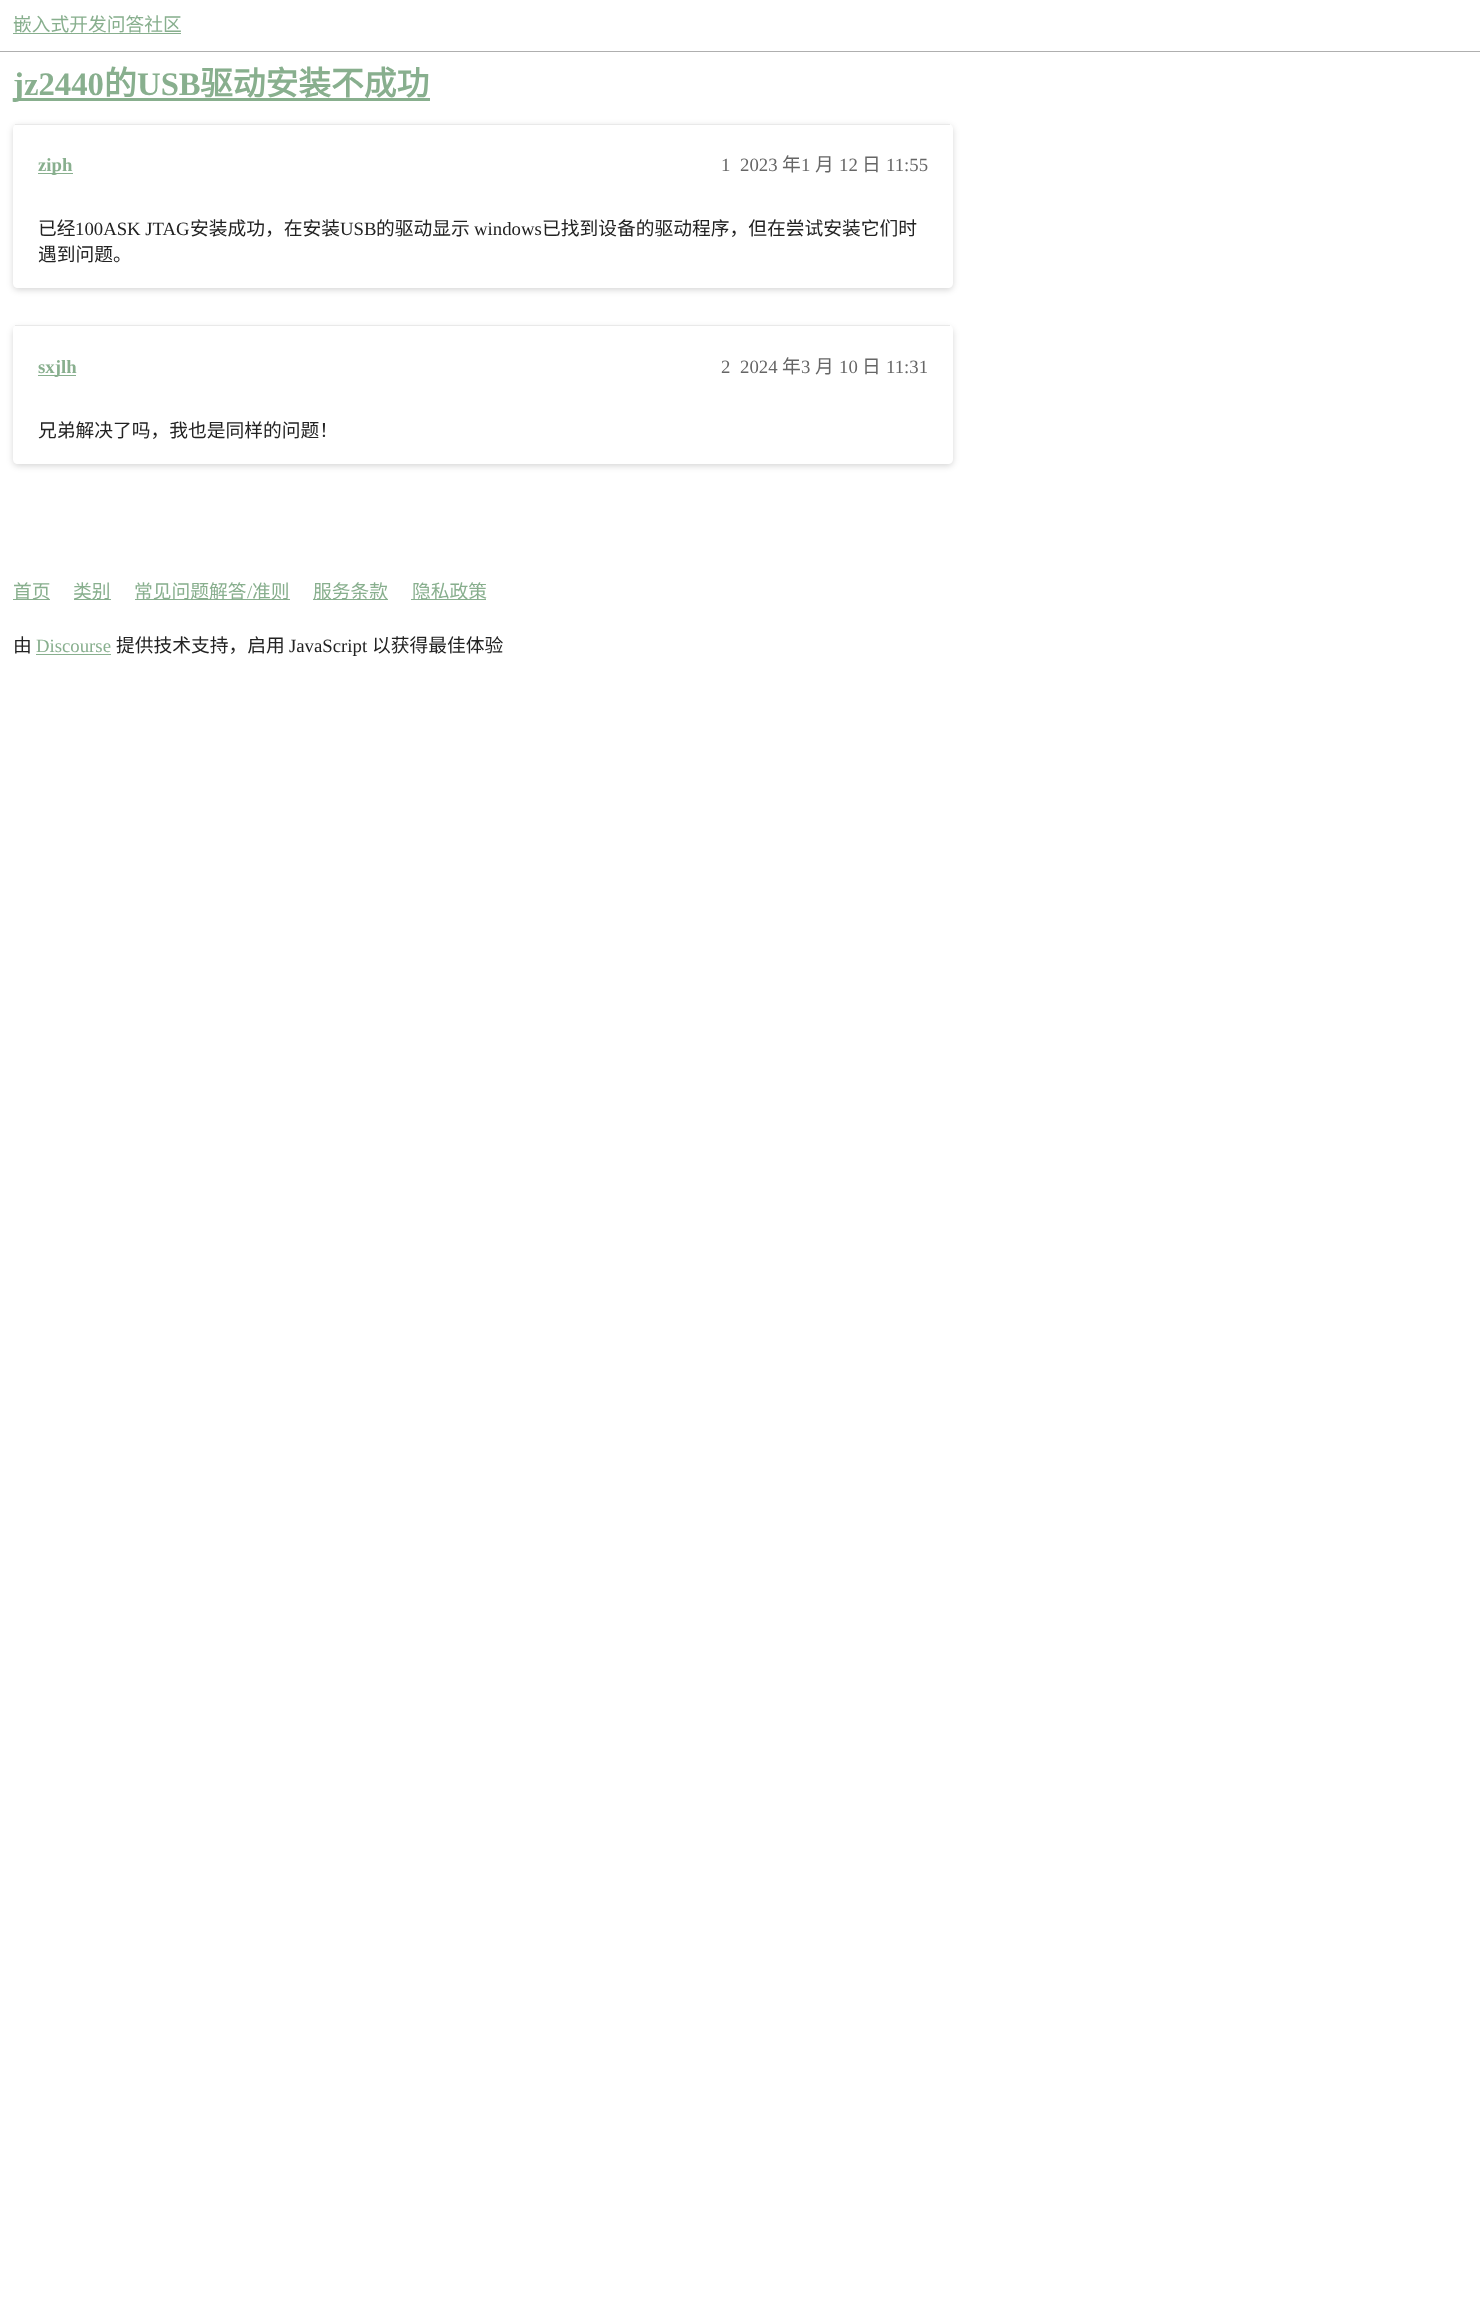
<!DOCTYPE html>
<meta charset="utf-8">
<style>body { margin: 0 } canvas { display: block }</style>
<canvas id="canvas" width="1480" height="2317"></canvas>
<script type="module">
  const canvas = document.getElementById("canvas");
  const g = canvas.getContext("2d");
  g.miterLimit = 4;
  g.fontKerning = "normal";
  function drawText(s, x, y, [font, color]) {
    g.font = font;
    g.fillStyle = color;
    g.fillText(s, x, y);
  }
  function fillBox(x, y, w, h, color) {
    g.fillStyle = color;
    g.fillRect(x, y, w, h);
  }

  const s1 = ["18.75px Noto Sans CJK SC", "#88AF8E"];
  const s2 = ["bold 32.75px Liberation Serif", "#88AF8E"];
  const s3 = ["bold 32.75px Noto Sans CJK SC", "#88AF8E"];
  const s4 = ["bold 18.75px Liberation Serif", "#88AF8E"];
  const s5 = ["18.75px Liberation Serif", "#666666"];
  const s6 = ["18.75px Noto Sans CJK SC", "#666666"];
  const s7 = ["18.75px Noto Sans CJK SC", "#222222"];
  const s8 = ["18.75px Liberation Serif", "#222222"];
  const s9 = ["18.75px Liberation Serif", "#88AF8E"];

  fillBox(0, 0, 1480, 2317, "#FFFFFF");
  fillBox(0, 51, 1480, 1, "#AFAFAF");
  drawText("嵌入式开发问答社区", 13, 31, s1);
  fillBox(13, 33, 168, 1, "#88AF8E");
  fillBox(13, 98, 417, 3, "#88AF8E");
  drawText("jz2440", 13, 95, s2);
  drawText("的", 104, 95, s3);
  drawText("USB", 137, 95, s2);
  drawText("驱动安装不成功", 200, 95, s3);
  g.save();
  g.beginPath();
  g.moveTo(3, 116);
  g.lineTo(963, 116);
  g.lineTo(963, 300);
  g.lineTo(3, 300);
  g.closePath();
  g.moveTo(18, 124);
  g.lineTo(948, 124);
  g.bezierCurveTo(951, 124, 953, 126, 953, 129);
  g.lineTo(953, 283);
  g.bezierCurveTo(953, 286, 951, 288, 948, 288);
  g.lineTo(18, 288);
  g.bezierCurveTo(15, 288, 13, 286, 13, 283);
  g.lineTo(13, 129);
  g.bezierCurveTo(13, 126, 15, 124, 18, 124);
  g.closePath();
  g.clip("evenodd");
  g.fillStyle = "rgba(0, 0, 0, 0.16)";
  g.filter = "blur(3px)";
  g.beginPath();
  g.roundRect(13, 126, 940, 164, 5);
  g.fill();
  g.filter = "none";
  g.restore();
  fillBox(15, 124, 935, 1, "#E9E9E9");
  fillBox(38, 173, 35, 1, "#88AF8E");
  drawText("ziph", 38, 171, s4);
  drawText("1", 721, 171, s5);
  drawText("2023", 740, 171, s5);
  drawText("年", 782, 171, s6);
  drawText("1", 801, 171, s5);
  drawText("月", 815, 171, s6);
  drawText("12", 839, 171, s5);
  drawText("日", 862, 171, s6);
  drawText("11:55", 886, 171, s5);
  drawText("已经", 38, 235, s7);
  drawText("100ASK JTAG", 75, 235, s8);
  drawText("安装成功，在安装", 190, 235, s7);
  drawText("USB", 340, 235, s8);
  drawText("的驱动显示", 376, 235, s7);
  drawText("windows", 474, 235, s8);
  drawText("已找到设备的驱动程序，但在尝试安装它们时", 542, 235, s7);
  drawText("遇到问题。", 38, 261, s7);
  g.save();
  g.beginPath();
  g.moveTo(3, 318);
  g.lineTo(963, 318);
  g.lineTo(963, 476);
  g.lineTo(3, 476);
  g.closePath();
  g.moveTo(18, 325);
  g.lineTo(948, 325);
  g.bezierCurveTo(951, 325, 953, 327, 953, 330);
  g.lineTo(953, 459);
  g.bezierCurveTo(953, 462, 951, 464, 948, 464);
  g.lineTo(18, 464);
  g.bezierCurveTo(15, 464, 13, 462, 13, 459);
  g.lineTo(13, 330);
  g.bezierCurveTo(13, 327, 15, 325, 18, 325);
  g.closePath();
  g.clip("evenodd");
  g.fillStyle = "rgba(0, 0, 0, 0.16)";
  g.filter = "blur(3px)";
  g.beginPath();
  g.roundRect(13, 328, 940, 138, 5);
  g.fill();
  g.filter = "none";
  g.restore();
  fillBox(15, 325, 935, 1, "#E9E9E9");
  fillBox(38, 375, 38, 1, "#88AF8E");
  drawText("sxjlh", 38, 373, s4);
  drawText("2", 721, 373, s5);
  drawText("2024", 740, 373, s5);
  drawText("年", 782, 373, s6);
  drawText("3", 801, 373, s5);
  drawText("月", 815, 373, s6);
  drawText("10", 839, 373, s5);
  drawText("日", 862, 373, s6);
  drawText("11:31", 886, 373, s5);
  drawText("兄弟解决了吗，我也是同样的问题！", 38, 437, s7);
  fillBox(13, 599, 37, 1, "#88AF8E");
  drawText("首页", 13, 598, s1);
  fillBox(74, 599, 37, 1, "#88AF8E");
  drawText("类别", 73, 598, s1);
  fillBox(135, 599, 155, 1, "#88AF8E");
  drawText("常见问题解答", 134, 598, s1);
  drawText("/", 247, 598, s9);
  drawText("准则", 252, 598, s1);
  fillBox(313, 599, 75, 1, "#88AF8E");
  drawText("服务条款", 313, 598, s1);
  fillBox(411, 599, 75, 1, "#88AF8E");
  drawText("隐私政策", 412, 598, s1);
  drawText("由", 13, 652, s7);
  drawText("Discourse", 36, 652, s9);
  fillBox(36, 654, 75, 1, "#88AF8E");
  drawText("提供技术支持，启用", 116, 652, s7);
  drawText("JavaScript", 289, 652, s8);
  drawText("以获得最佳体验", 372, 652, s7);
</script>
